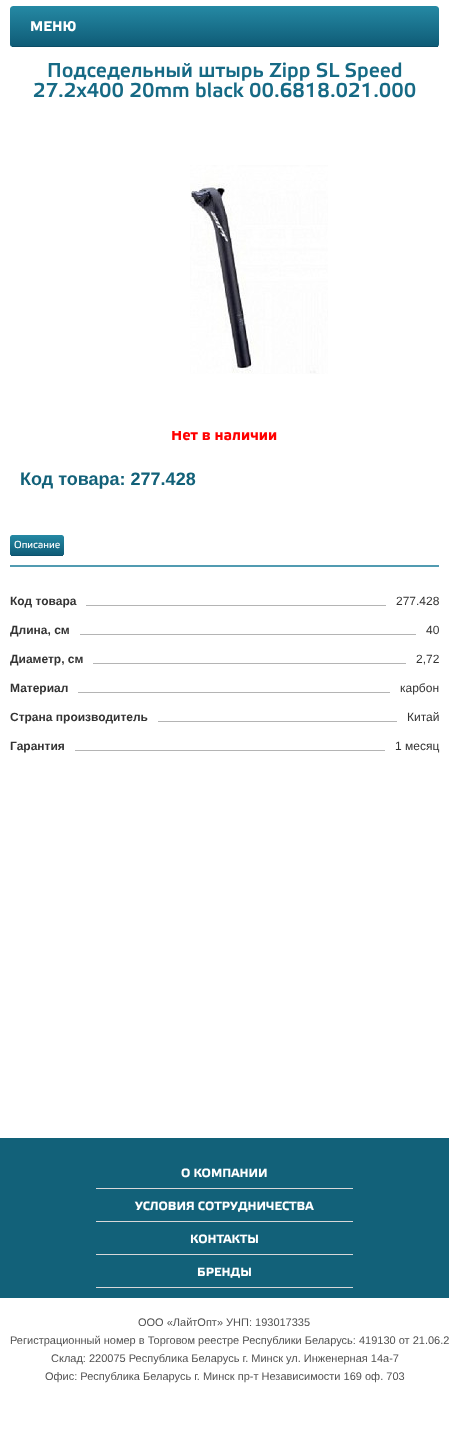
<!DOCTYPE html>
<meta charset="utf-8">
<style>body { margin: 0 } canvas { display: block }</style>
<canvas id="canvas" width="449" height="1446"></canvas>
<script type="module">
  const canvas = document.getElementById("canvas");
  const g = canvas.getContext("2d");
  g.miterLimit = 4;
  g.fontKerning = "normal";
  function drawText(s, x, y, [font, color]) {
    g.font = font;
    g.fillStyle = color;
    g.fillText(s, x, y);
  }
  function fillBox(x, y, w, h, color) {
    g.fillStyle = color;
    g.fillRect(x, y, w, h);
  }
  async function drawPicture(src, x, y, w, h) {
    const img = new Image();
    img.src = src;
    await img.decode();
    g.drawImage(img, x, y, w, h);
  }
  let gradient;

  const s1 = ["bold 14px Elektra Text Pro", "#FFFFFF"];
  const s2 = ["20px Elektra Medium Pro", "#166A85"];
  const s3 = ["bold 15px Elektra Text Pro", "#FF0000"];
  const s4 = ["bold 18px Liberation Sans", "#126179"];
  const s5 = ["10px Elektra Text Pro", "#FFFFFF"];
  const s6 = ["bold 12px Liberation Sans", "#333333"];
  const s7 = ["12px Liberation Sans", "#333333"];
  const s8 = ["bold 12px Elektra Text Pro", "#FFFFFF"];
  const s9 = ["11px Liberation Sans", "#515151"];

  fillBox(0, 0, 449, 1446, "#FFFFFF");
  g.save();
  g.beginPath();
  g.roundRect(10, 6, 429, 41, 3);
  g.clip();
  gradient = g.createLinearGradient(225, 6, 225, 46);
  gradient.addColorStop(0, "#2589A4");
  gradient.addColorStop(1, "#0F5C77");
  g.fillStyle = gradient;
  g.beginPath();
  g.roundRect(10, 6, 429, 40, [3, 3, 0, 0]);
  g.fill();
  gradient = g.createLinearGradient(225, 46, 225, 86);
  gradient.addColorStop(0, "#2589A4");
  gradient.addColorStop(1, "#0F5C77");
  g.fillStyle = gradient;
  g.fillRect(10, 46, 429, 1);
  g.restore();
  fillBox(12, 46, 426, 1, "#0C4D66");
  drawText("МЕНЮ", 30, 31, s1);
  drawText("Подседельный штырь Zipp SL Speed", 47, 77, s2);
  drawText("27.2х400 20mm black 00.6818.021.000", 33, 97, s2);
  drawText("Нет в наличии", 171, 440, s3);
  fillBox(172, 429, 10, 2, "#FFFFFF");
  await drawPicture("pic1.png", 190, 165, 138, 209);
  drawText("Код товара: 277.428", 20, 485, s4);
  fillBox(10, 565, 429, 2, "#519BB1");
  g.save();
  g.beginPath();
  g.roundRect(10, 535, 54, 21, 2);
  g.clip();
  gradient = g.createLinearGradient(37, 535, 37, 555);
  gradient.addColorStop(0, "#2589A4");
  gradient.addColorStop(1, "#0F5C77");
  g.fillStyle = gradient;
  g.beginPath();
  g.roundRect(10, 535, 54, 20, [2, 2, 0, 0]);
  g.fill();
  g.restore();
  fillBox(11, 555, 52, 1, "#0C516D");
  drawText("Описание", 14, 548, s5);
  drawText("Код товара", 10, 605, s6);
  fillBox(86, 605, 300, 1, "#B4B4B4");
  drawText("277.428", 396, 605, s7);
  drawText("Длина, см", 10, 634, s6);
  fillBox(80, 634, 336, 1, "#B4B4B4");
  drawText("40", 426, 634, s7);
  drawText("Диаметр, см", 10, 663, s6);
  fillBox(93, 663, 313, 1, "#B4B4B4");
  drawText("2,72", 416, 663, s7);
  drawText("Материал", 10, 692, s6);
  fillBox(78, 692, 312, 1, "#B4B4B4");
  drawText("карбон", 400, 692, s7);
  drawText("Страна производитель", 10, 721, s6);
  fillBox(158, 721, 239, 1, "#B4B4B4");
  drawText("Китай", 407, 721, s7);
  drawText("Гарантия", 10, 750, s6);
  fillBox(75, 750, 310, 1, "#B4B4B4");
  drawText("1 месяц", 395, 750, s7);
  fillBox(0, 1138, 449, 160, "#126179");
  fillBox(96, 1188, 257, 1, "#D8D8D9");
  drawText("О КОМПАНИИ", 181, 1177, s8);
  fillBox(96, 1221, 257, 1, "#D8D8D9");
  drawText("УСЛОВИЯ СОТРУДНИЧЕСТВА", 135, 1210, s8);
  fillBox(96, 1254, 257, 1, "#D8D8D9");
  drawText("КОНТАКТЫ", 190, 1243, s8);
  fillBox(96, 1287, 257, 1, "#D8D8D9");
  drawText("БРЕНДЫ", 197, 1276, s8);
  drawText("ООО «ЛайтОпт» УНП: 193017335", 138, 1326, s9);
  drawText("Регистрационный номер в Торговом реестре Республики Беларусь: 419130 от 21.06.2", 10, 1344, s9);
  drawText("Склад: 220075 Республика Беларусь г. Минск ул. Инженерная 14а-7", 51, 1362, s9);
  drawText("Офис: Республика Беларусь г. Минск пр-т Независимости 169 оф. 703", 45, 1380, s9);
</script>
